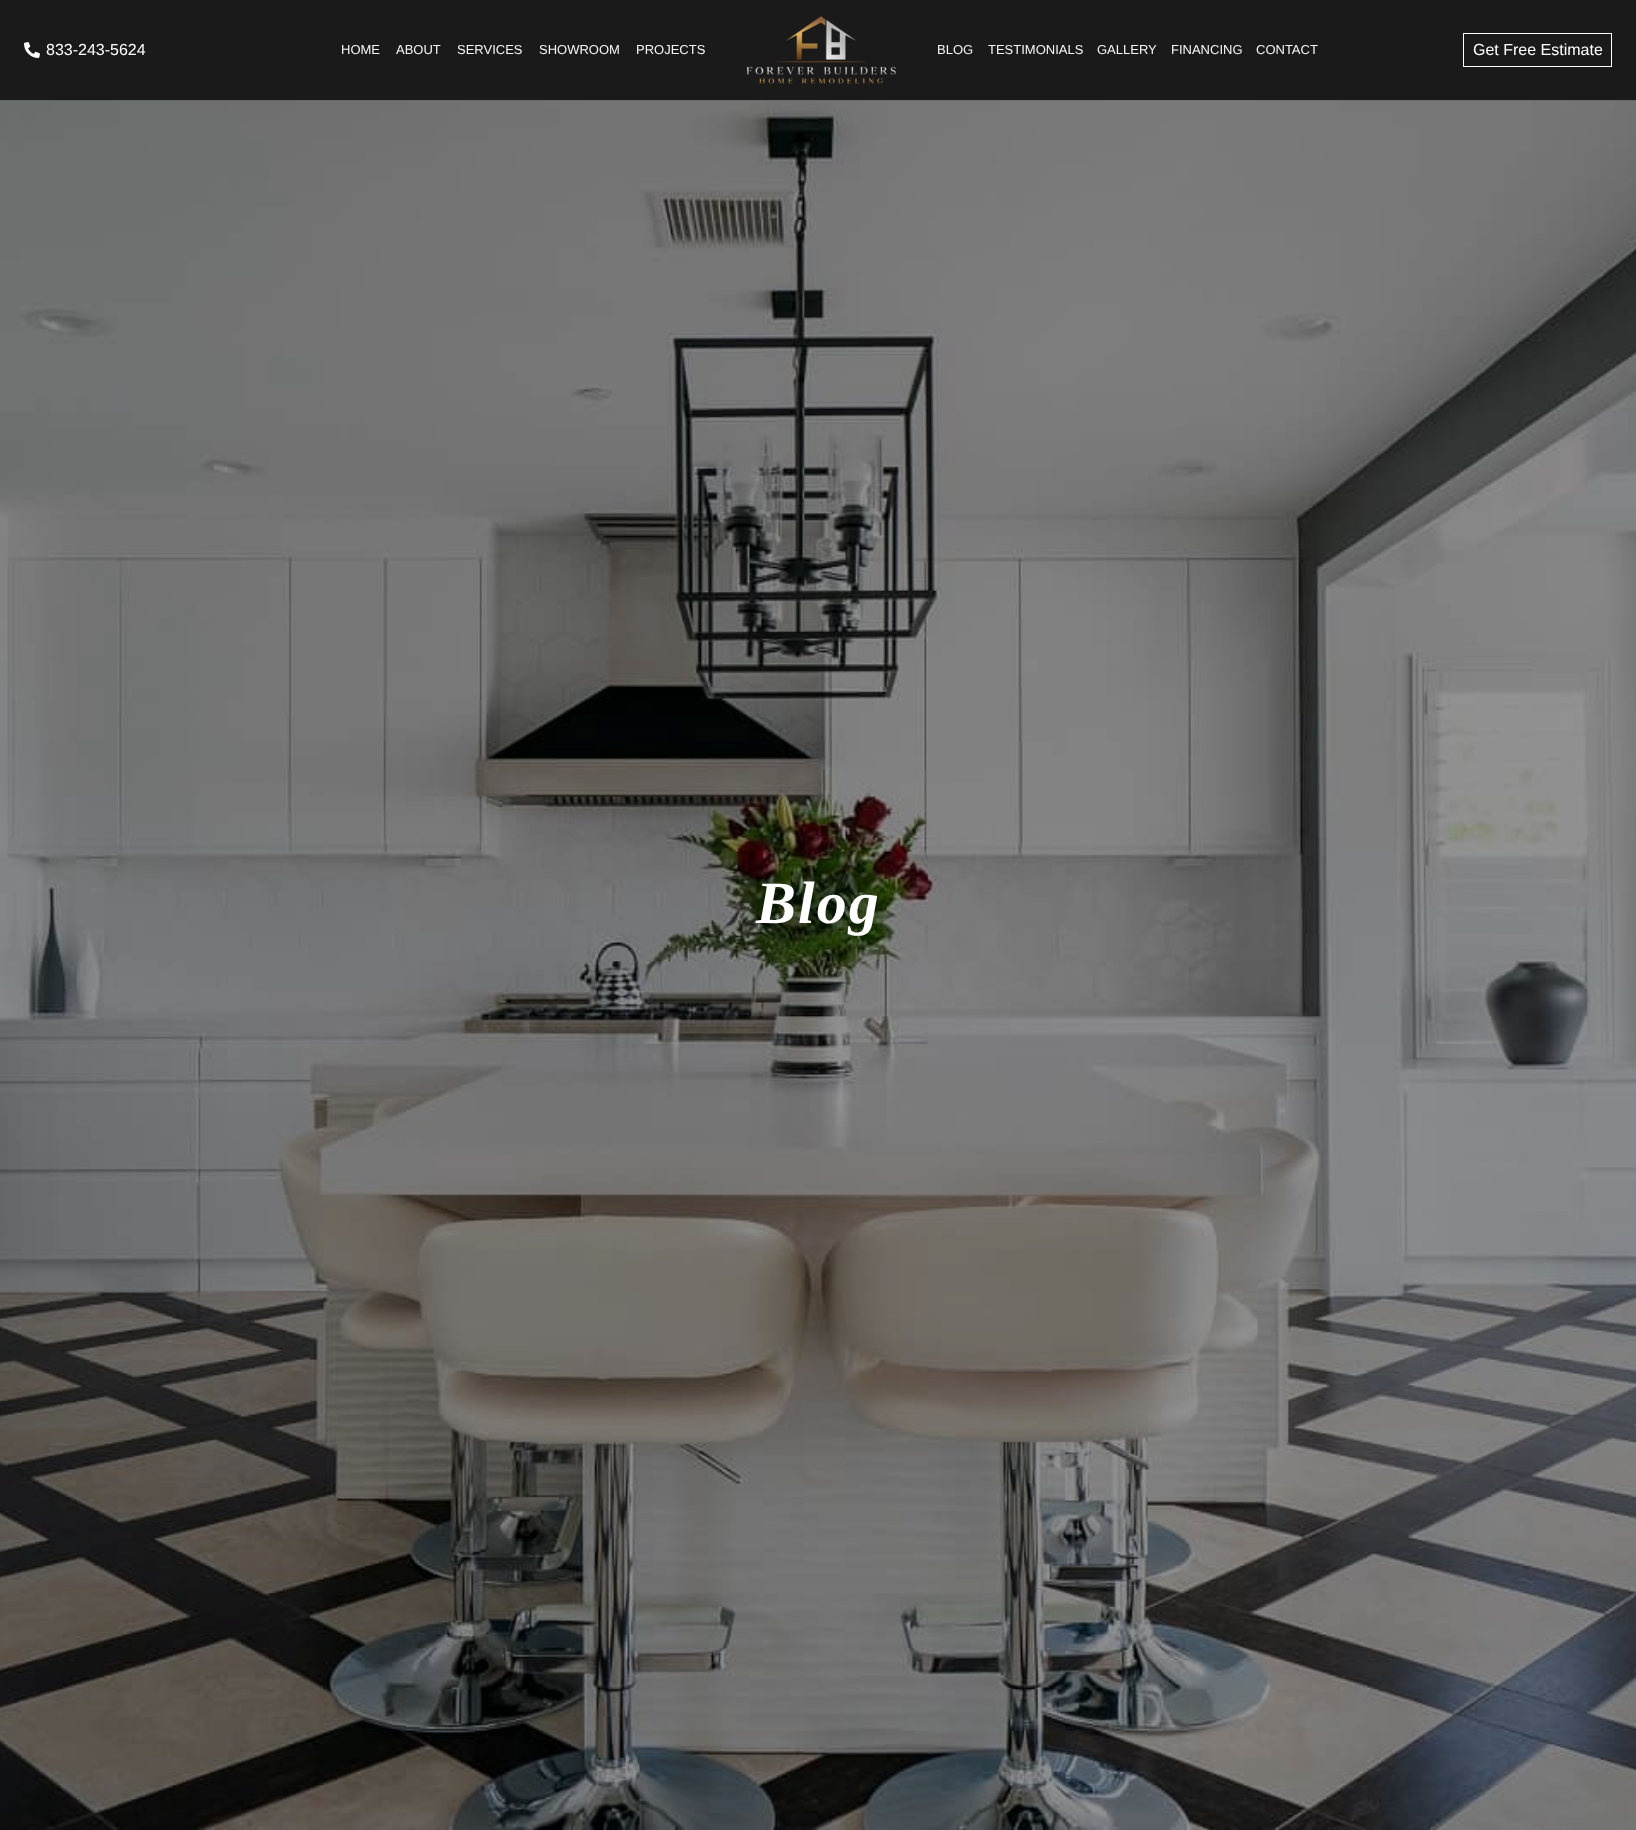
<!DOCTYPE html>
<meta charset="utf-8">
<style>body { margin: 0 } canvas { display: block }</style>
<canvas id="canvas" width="1636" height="1830"></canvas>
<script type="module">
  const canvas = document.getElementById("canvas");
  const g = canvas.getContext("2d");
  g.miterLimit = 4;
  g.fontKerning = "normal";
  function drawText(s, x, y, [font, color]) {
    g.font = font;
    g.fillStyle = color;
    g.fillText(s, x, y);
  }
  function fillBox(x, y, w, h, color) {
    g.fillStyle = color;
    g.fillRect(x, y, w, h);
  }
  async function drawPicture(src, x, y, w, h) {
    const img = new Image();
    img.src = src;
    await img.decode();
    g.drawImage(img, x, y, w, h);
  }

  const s1 = ["16px Liberation Sans", "#FFFFFF"];
  const s2 = ["13px Liberation Sans", "#F5F5F5"];
  const s3 = ["italic bold 60px Liberation Serif", "#FFFFFF"];

  fillBox(0, 0, 1636, 1830, "#FFFFFF");
  await drawPicture("pic3.png", 0, 100, 1636, 1730);
  fillBox(0, 100, 1636, 1, "rgba(0, 0, 0, 0.08)");
  fillBox(0, 0, 1636, 100, "#1A1A1A");
  await drawPicture("pic1.png", 24, 42, 16, 16);
  drawText("833-243-5624", 46, 55, s1);
  drawText("HOME", 341, 54, s2);
  drawText("ABOUT", 396, 54, s2);
  drawText("SERVICES", 457, 54, s2);
  drawText("SHOWROOM", 539, 54, s2);
  drawText("PROJECTS", 636, 54, s2);
  await drawPicture("pic2.png", 746, 16, 150, 68);
  drawText("BLOG", 937, 54, s2);
  drawText("TESTIMONIALS", 988, 54, s2);
  drawText("GALLERY", 1097, 54, s2);
  drawText("FINANCING", 1171, 54, s2);
  drawText("CONTACT", 1256, 54, s2);
  g.strokeStyle = "#FFFFFF";
  g.strokeRect(1463.5, 33.5, 148, 33);
  drawText("Get Free Estimate", 1473, 55, s1);
  g.letterSpacing = "2px";
  drawText("Blog", 756, 923, s3);
</script>
